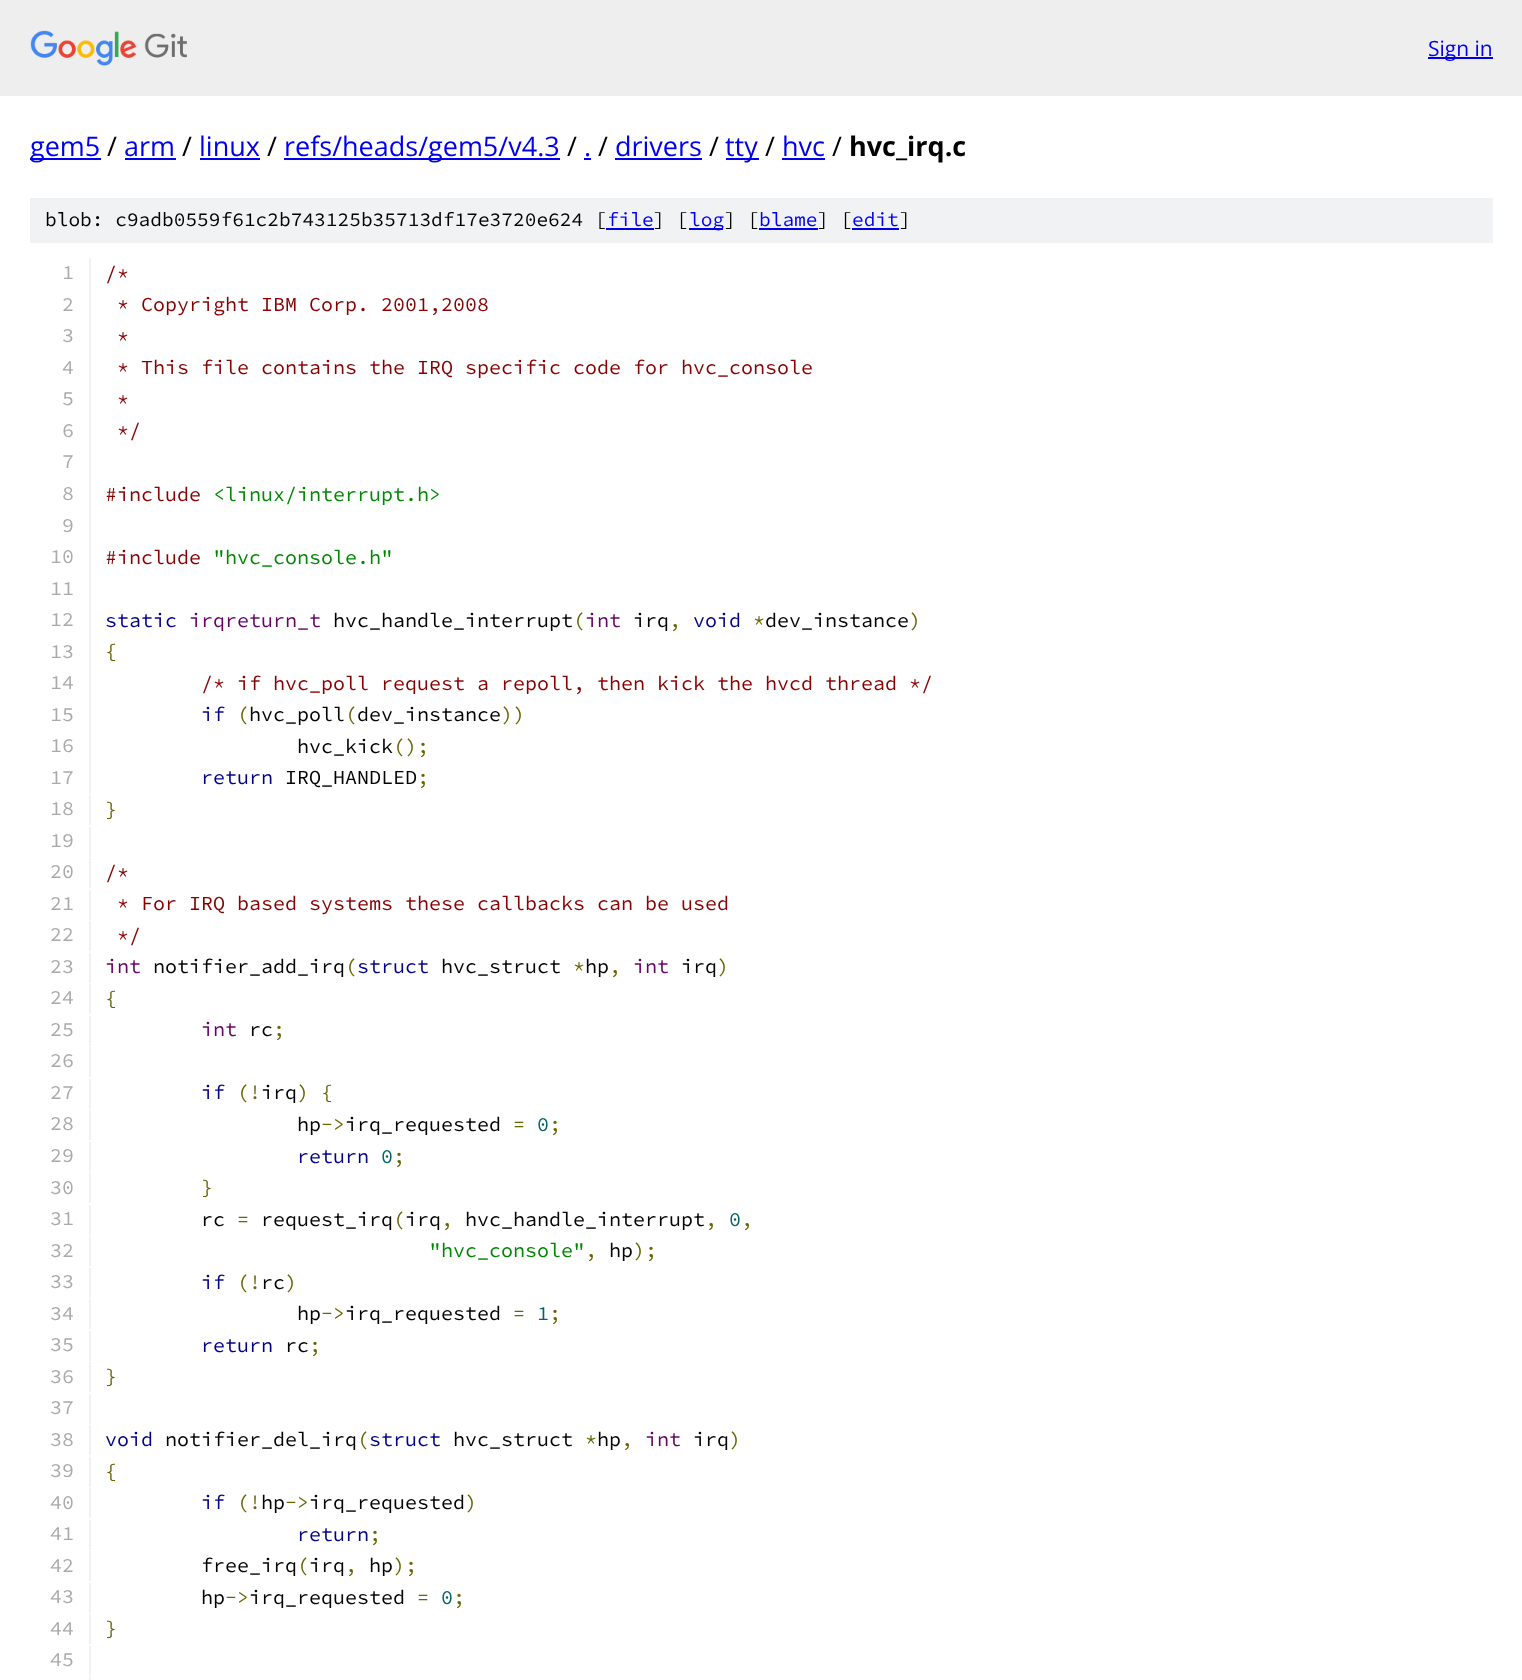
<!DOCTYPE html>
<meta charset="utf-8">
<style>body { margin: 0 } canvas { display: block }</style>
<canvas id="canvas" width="1522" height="1680"></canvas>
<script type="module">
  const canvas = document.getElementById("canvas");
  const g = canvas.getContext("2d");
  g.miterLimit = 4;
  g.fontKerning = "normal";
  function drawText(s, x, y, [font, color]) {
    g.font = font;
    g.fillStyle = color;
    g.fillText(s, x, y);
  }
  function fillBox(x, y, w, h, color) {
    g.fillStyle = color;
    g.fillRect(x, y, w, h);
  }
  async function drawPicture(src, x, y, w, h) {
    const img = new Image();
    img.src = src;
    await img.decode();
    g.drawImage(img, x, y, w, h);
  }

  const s1 = ["21px Open Sans", "#0000EE"];
  const s2 = ["27px Open Sans", "#0000EE"];
  const s3 = ["27px Open Sans", "#000000"];
  const s4 = ["bold 27px Open Sans", "#000000"];
  const s5 = ["200 19.5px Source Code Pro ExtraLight", "#000000"];
  const s6 = ["200 19.5px Source Code Pro ExtraLight", "#0000EE"];
  const s7 = ["200 20px Source Code Pro ExtraLight", "#AAAAAA"];
  const s8 = ["200 20px Source Code Pro ExtraLight", "#880000"];
  const s9 = ["200 20px Source Code Pro ExtraLight", "#008800"];
  const s10 = ["200 20px Source Code Pro ExtraLight", "#000088"];
  const s11 = ["200 20px Source Code Pro ExtraLight", "#660066"];
  const s12 = ["200 20px Source Code Pro ExtraLight", "#000000"];
  const s13 = ["200 20px Source Code Pro ExtraLight", "#666600"];
  const s14 = ["200 20px Source Code Pro ExtraLight", "#006666"];

  fillBox(0, 0, 1522, 1680, "#FFFFFF");
  fillBox(0, 0, 1522, 96, "#EEEEEE");
  await drawPicture("pic1.png", 30, 30, 157, 36);
  fillBox(1428, 57, 65, 2, "#0000EE");
  drawText("Sign in", 1428, 56, s1);
  fillBox(30, 158, 71, 2, "#0000EE");
  drawText("gem5", 30, 156, s2);
  drawText("/", 107, 156, s3);
  drawText("arm", 124, 156, s2);
  fillBox(125, 158, 51, 2, "#0000EE");
  drawText("/", 182, 156, s3);
  drawText("linux", 199, 156, s2);
  fillBox(200, 158, 60, 2, "#0000EE");
  drawText("/", 267, 156, s3);
  fillBox(284, 158, 276, 2, "#0000EE");
  drawText("refs/heads/gem5/v4.3", 284, 156, s2);
  drawText("/", 567, 156, s3);
  drawText(".", 584, 156, s2);
  fillBox(584, 158, 7, 2, "#0000EE");
  drawText("/", 598, 156, s3);
  drawText("drivers", 615, 156, s2);
  fillBox(615, 158, 87, 2, "#0000EE");
  drawText("/", 709, 156, s3);
  fillBox(726, 158, 33, 2, "#0000EE");
  drawText("tty", 725, 156, s2);
  drawText("/", 765, 156, s3);
  drawText("hvc", 782, 156, s2);
  fillBox(782, 158, 43, 2, "#0000EE");
  drawText("/", 832, 156, s3);
  drawText("hvc_irq.c", 849, 156, s4);
  fillBox(30, 198, 1463, 45, "#F1F2F3");
  drawText("blob: c9adb0559f61c2b743125b35713df17e3720e624 [", 45, 226, s5);
  drawText("file", 607, 226, s6);
  fillBox(606, 228, 48, 2, "#0000EE");
  drawText("] [", 653, 226, s5);
  fillBox(689, 228, 34, 2, "#0000EE");
  drawText("log", 689, 226, s6);
  drawText("] [", 724, 226, s5);
  drawText("blame", 759, 226, s6);
  fillBox(759, 228, 59, 2, "#0000EE");
  drawText("] [", 817, 226, s5);
  drawText("edit", 852, 226, s6);
  fillBox(852, 228, 47, 2, "#0000EE");
  drawText("]", 899, 226, s5);
  fillBox(89, 258, 2, 536, "#F1F2F3");
  drawText("1", 62, 279, s7);
  drawText("/*", 105, 280, s8);
  drawText("2", 62, 311, s7);
  drawText("* Copyright IBM Corp. 2001,2008", 117, 311, s8);
  drawText("3", 62, 342, s7);
  drawText("*", 117, 343, s8);
  drawText("4", 62, 374, s7);
  drawText("* This file contains the IRQ specific code for hvc_console", 117, 374, s8);
  drawText("5", 62, 405, s7);
  drawText("*", 117, 406, s8);
  drawText("6", 62, 437, s7);
  drawText("*/", 117, 437, s8);
  drawText("7", 62, 468, s7);
  drawText("8", 62, 500, s7);
  drawText("#include", 105, 501, s8);
  drawText("<linux/interrupt.h>", 213, 501, s9);
  drawText("9", 62, 532, s7);
  drawText("10", 50, 563, s7);
  drawText("#include", 105, 564, s8);
  drawText("\"hvc_console.h\"", 213, 564, s9);
  drawText("11", 50, 595, s7);
  drawText("12", 50, 626, s7);
  drawText("static", 105, 627, s10);
  drawText("irqreturn_t", 189, 627, s11);
  drawText("hvc_handle_interrupt", 333, 627, s12);
  drawText("(", 573, 627, s13);
  drawText("int", 585, 627, s11);
  drawText("irq", 633, 627, s12);
  drawText("void", 693, 627, s10);
  drawText("*", 753, 627, s13);
  drawText("dev_instance", 765, 627, s12);
  drawText(")", 909, 627, s13);
  drawText(",", 669, 627, s13);
  drawText("13", 50, 658, s7);
  drawText("{", 105, 658, s13);
  drawText("14", 50, 689, s7);
  drawText("/* if hvc_poll request a repoll, then kick the hvcd thread */", 201, 690, s8);
  drawText("15", 50, 721, s7);
  drawText("if", 201, 721, s10);
  drawText("(", 237, 721, s13);
  drawText("hvc_poll dev_instance", 249, 721, s12);
  drawText("(", 345, 721, s13);
  drawText("))", 501, 721, s13);
  drawText("16", 50, 752, s7);
  drawText("hvc_kick", 297, 753, s12);
  drawText("();", 393, 753, s13);
  drawText("17", 50, 784, s7);
  drawText("return", 201, 784, s10);
  drawText("IRQ_HANDLED", 285, 784, s12);
  drawText(";", 417, 784, s13);
  fillBox(89, 795, 2, 30, "#F1F2F3");
  drawText("18", 50, 815, s7);
  drawText("}", 105, 816, s13);
  fillBox(89, 827, 2, 30, "#F1F2F3");
  drawText("19", 50, 847, s7);
  fillBox(89, 858, 2, 30, "#F1F2F3");
  drawText("20", 50, 878, s7);
  drawText("/*", 105, 879, s8);
  fillBox(89, 890, 2, 30, "#F1F2F3");
  drawText("21", 50, 910, s7);
  drawText("* For IRQ based systems these callbacks can be used", 117, 910, s8);
  fillBox(89, 921, 2, 30, "#F1F2F3");
  drawText("22", 50, 941, s7);
  drawText("*/", 117, 942, s8);
  fillBox(89, 953, 2, 30, "#F1F2F3");
  drawText("23", 50, 973, s7);
  drawText("int", 105, 973, s11);
  drawText("notifier_add_irq", 153, 973, s12);
  drawText("(", 345, 973, s13);
  drawText("struct", 357, 973, s10);
  drawText("hvc_struct", 441, 973, s12);
  drawText("*", 573, 973, s13);
  drawText("hp", 585, 973, s12);
  drawText("int", 633, 973, s11);
  drawText("irq", 681, 973, s12);
  drawText(")", 717, 973, s13);
  drawText(",", 609, 973, s13);
  fillBox(89, 984, 2, 30, "#F1F2F3");
  drawText("24", 50, 1004, s7);
  drawText("{", 105, 1005, s13);
  fillBox(89, 1016, 2, 30, "#F1F2F3");
  drawText("25", 50, 1036, s7);
  drawText("int", 201, 1036, s11);
  drawText("rc", 249, 1036, s12);
  drawText(";", 273, 1036, s13);
  fillBox(89, 1047, 2, 30, "#F1F2F3");
  drawText("26", 50, 1067, s7);
  fillBox(89, 1079, 2, 30, "#F1F2F3");
  drawText("27", 50, 1099, s7);
  drawText("if", 201, 1099, s10);
  drawText("(!", 237, 1099, s13);
  drawText("irq", 261, 1099, s12);
  drawText(") {", 297, 1099, s13);
  fillBox(89, 1110, 2, 30, "#F1F2F3");
  drawText("28", 50, 1130, s7);
  drawText("hp", 297, 1131, s12);
  drawText("->", 321, 1131, s13);
  drawText("irq_requested", 345, 1131, s12);
  drawText("=", 513, 1131, s13);
  drawText("0", 537, 1131, s14);
  drawText(";", 549, 1131, s13);
  fillBox(89, 1142, 2, 30, "#F1F2F3");
  drawText("29", 50, 1162, s7);
  drawText("return", 297, 1163, s10);
  drawText("0", 381, 1163, s14);
  drawText(";", 393, 1163, s13);
  fillBox(89, 1173, 2, 30, "#F1F2F3");
  drawText("30", 50, 1194, s7);
  drawText("}", 201, 1194, s13);
  fillBox(89, 1205, 2, 30, "#F1F2F3");
  drawText("31", 50, 1225, s7);
  drawText("request_irq irq", 261, 1226, s12);
  drawText("rc", 201, 1226, s12);
  drawText("=", 237, 1226, s13);
  drawText("(", 393, 1226, s13);
  drawText("hvc_handle_interrupt", 465, 1226, s12);
  drawText("0", 729, 1226, s14);
  drawText(",", 441, 1226, s13);
  drawText(",", 705, 1226, s13);
  drawText(",", 741, 1226, s13);
  fillBox(89, 1236, 2, 30, "#F1F2F3");
  drawText("32", 50, 1257, s7);
  drawText("\"hvc_console\"", 429, 1257, s9);
  drawText(",", 585, 1257, s13);
  drawText("hp", 609, 1257, s12);
  drawText(");", 633, 1257, s13);
  fillBox(89, 1268, 2, 30, "#F1F2F3");
  drawText("33", 50, 1288, s7);
  drawText("if", 201, 1289, s10);
  drawText("(!", 237, 1289, s13);
  drawText("rc", 261, 1289, s12);
  drawText(")", 285, 1289, s13);
  fillBox(89, 1299, 2, 30, "#F1F2F3");
  drawText("34", 50, 1320, s7);
  drawText("hp", 297, 1320, s12);
  drawText("->", 321, 1320, s13);
  drawText("irq_requested", 345, 1320, s12);
  drawText("=", 513, 1320, s13);
  drawText("1", 537, 1320, s14);
  drawText(";", 549, 1320, s13);
  fillBox(89, 1331, 2, 30, "#F1F2F3");
  drawText("35", 50, 1351, s7);
  drawText("return", 201, 1352, s10);
  drawText("rc", 285, 1352, s12);
  drawText(";", 309, 1352, s13);
  fillBox(89, 1362, 2, 30, "#F1F2F3");
  drawText("36", 50, 1383, s7);
  drawText("}", 105, 1383, s13);
  fillBox(89, 1394, 2, 30, "#F1F2F3");
  drawText("37", 50, 1414, s7);
  fillBox(89, 1425, 2, 30, "#F1F2F3");
  drawText("38", 50, 1446, s7);
  drawText("void", 105, 1446, s10);
  drawText("notifier_del_irq", 165, 1446, s12);
  drawText("(", 357, 1446, s13);
  drawText("struct", 369, 1446, s10);
  drawText("hvc_struct", 453, 1446, s12);
  drawText("*", 585, 1446, s13);
  drawText("hp", 597, 1446, s12);
  drawText("int", 645, 1446, s11);
  drawText("irq", 693, 1446, s12);
  drawText(")", 729, 1446, s13);
  drawText(",", 621, 1446, s13);
  fillBox(89, 1457, 2, 30, "#F1F2F3");
  drawText("39", 50, 1477, s7);
  drawText("{", 105, 1478, s13);
  fillBox(89, 1488, 2, 30, "#F1F2F3");
  drawText("40", 50, 1509, s7);
  drawText("if", 201, 1509, s10);
  drawText("(!", 237, 1509, s13);
  drawText("hp", 261, 1509, s12);
  drawText("->", 285, 1509, s13);
  drawText("irq_requested", 309, 1509, s12);
  drawText(")", 465, 1509, s13);
  fillBox(89, 1520, 2, 30, "#F1F2F3");
  drawText("41", 50, 1540, s7);
  drawText("return", 297, 1541, s10);
  drawText(";", 369, 1541, s13);
  fillBox(89, 1551, 2, 30, "#F1F2F3");
  drawText("42", 50, 1572, s7);
  drawText("free_irq irq", 201, 1572, s12);
  drawText("(", 297, 1572, s13);
  drawText(",", 345, 1572, s13);
  drawText("hp", 369, 1572, s12);
  drawText(");", 393, 1572, s13);
  fillBox(89, 1583, 2, 30, "#F1F2F3");
  drawText("43", 50, 1603, s7);
  drawText("hp", 201, 1604, s12);
  drawText("->", 225, 1604, s13);
  drawText("irq_requested", 249, 1604, s12);
  drawText("=", 417, 1604, s13);
  drawText("0", 441, 1604, s14);
  drawText(";", 453, 1604, s13);
  fillBox(89, 1614, 2, 30, "#F1F2F3");
  drawText("44", 50, 1635, s7);
  drawText("}", 105, 1635, s13);
  fillBox(89, 1646, 2, 30, "#F1F2F3");
  drawText("45", 50, 1666, s7);
  fillBox(89, 1677, 2, 3, "#F1F2F3");
</script>
